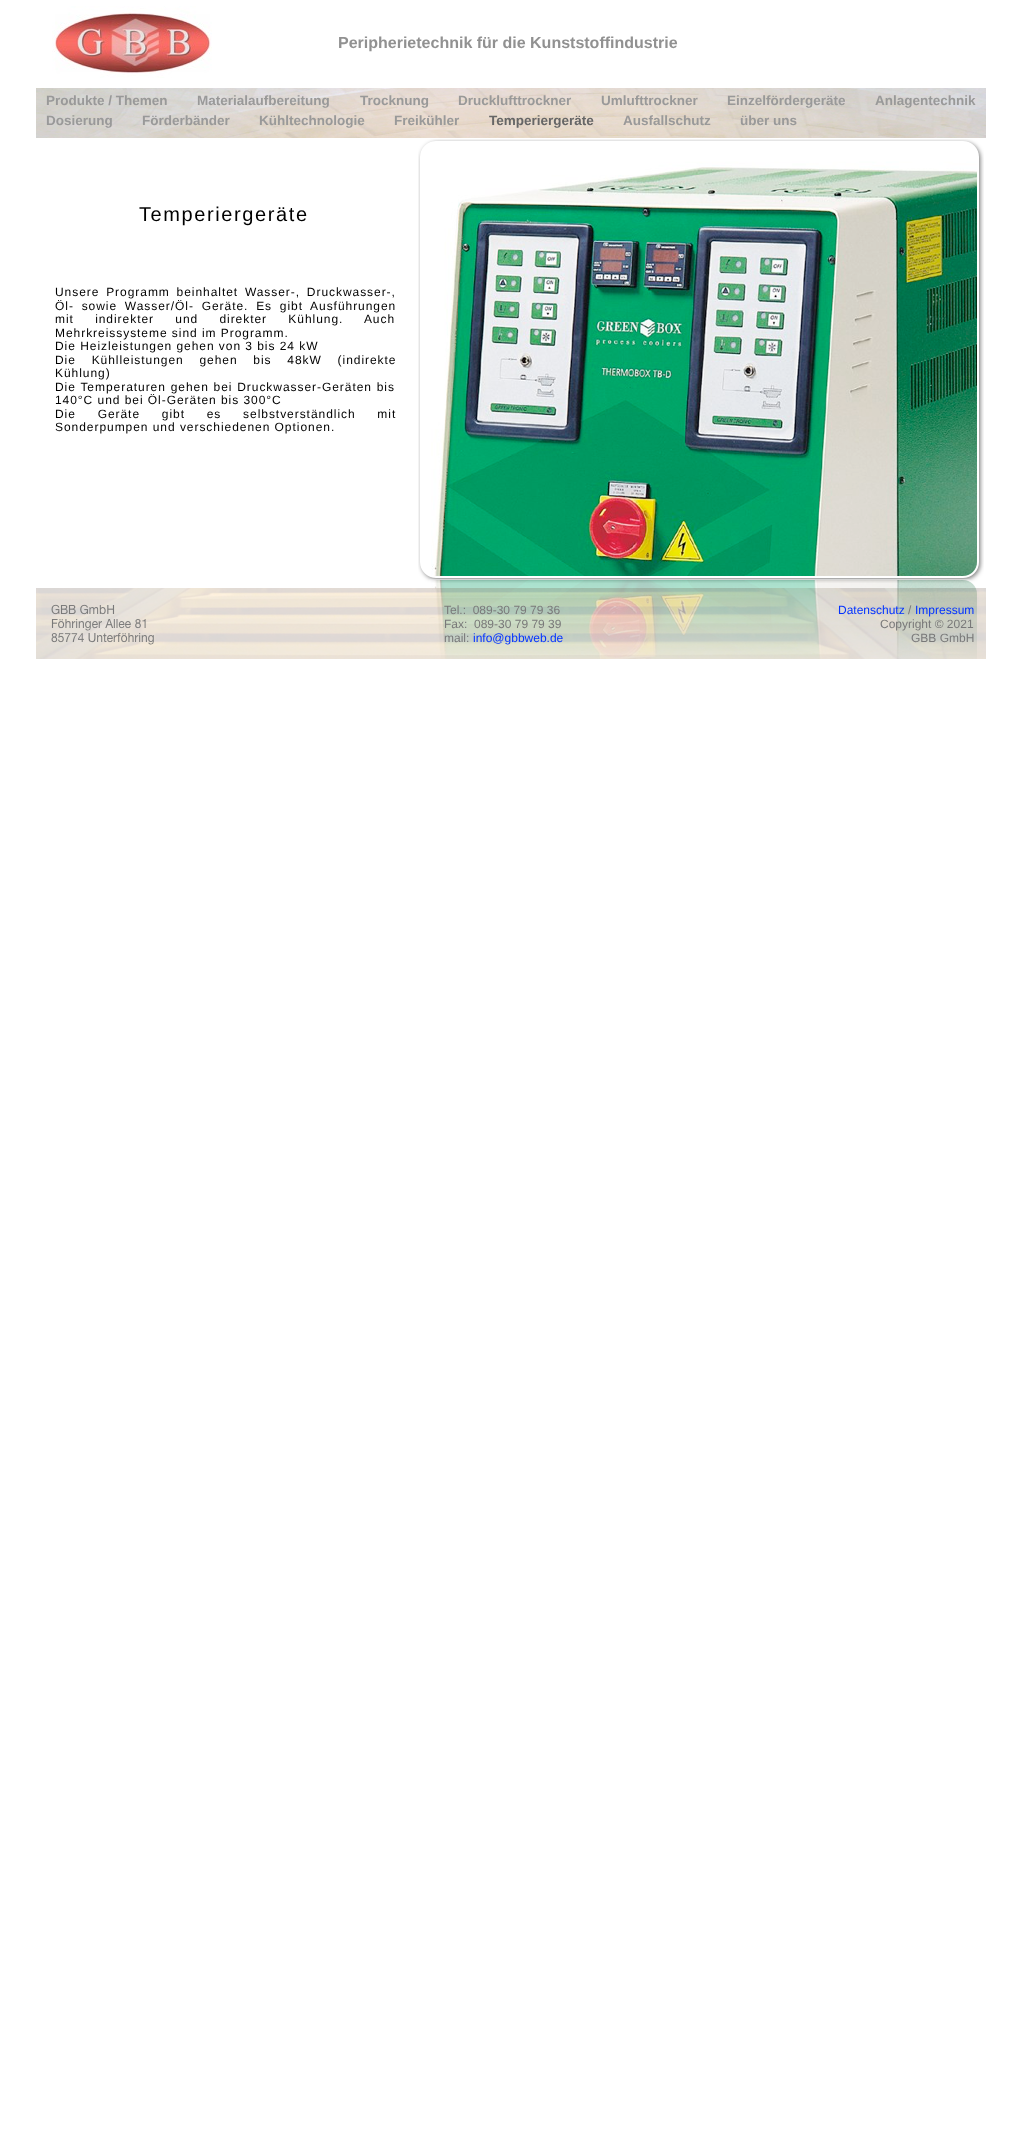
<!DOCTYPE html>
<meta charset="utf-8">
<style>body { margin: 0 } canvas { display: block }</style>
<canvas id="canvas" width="1022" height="2134"></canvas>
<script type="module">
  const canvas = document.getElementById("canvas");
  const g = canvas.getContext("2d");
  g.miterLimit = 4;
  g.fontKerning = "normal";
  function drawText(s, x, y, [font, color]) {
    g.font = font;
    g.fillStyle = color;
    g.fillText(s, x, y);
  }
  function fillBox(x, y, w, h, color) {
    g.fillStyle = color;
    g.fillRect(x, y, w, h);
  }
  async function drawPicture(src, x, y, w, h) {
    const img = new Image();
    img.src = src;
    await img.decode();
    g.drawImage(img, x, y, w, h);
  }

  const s1 = ["bold 16px Liberation Sans", "#919191"];
  const s2 = ["bold 13.5px Liberation Sans", "#999999"];
  const s3 = ["bold 13.5px Liberation Sans", "#666666"];
  const s4 = ["20px Liberation Sans", "#000000"];
  const s5 = ["12px Liberation Sans", "#000000"];
  const s6 = ["12px Liberation Sans", "#797979"];
  const s7 = ["12px Liberation Sans", "#0433FF"];

  fillBox(0, 0, 1022, 2134, "#FFFFFF");
  await drawPicture("pic1.png", 52, 6, 160, 72);
  fillBox(165, 6, 14, 1, "#FFFFFF");
  drawText("Peripherietechnik für die Kunststoffindustrie", 338, 48, s1);
  await drawPicture("pic2.png", 36, 88, 950, 50);
  drawText("Produkte / Themen", 46, 105, s2);
  drawText("Materialaufbereitung", 197, 105, s2);
  drawText("Trocknung", 360, 105, s2);
  drawText("Drucklufttrockner", 458, 105, s2);
  drawText("Umlufttrockner", 601, 105, s2);
  drawText("Einzelfördergeräte", 727, 105, s2);
  drawText("Anlagentechnik", 875, 105, s2);
  drawText("Dosierung", 46, 125, s2);
  drawText("Förderbänder", 142, 125, s2);
  drawText("Kühltechnologie", 259, 125, s2);
  drawText("Freikühler", 394, 125, s2);
  drawText("Temperiergeräte", 489, 125, s3);
  drawText("Ausfallschutz", 623, 125, s2);
  drawText("über uns", 740, 125, s2);
  g.letterSpacing = "1.6px";
  drawText("Temperiergeräte", 139, 221, s4);
  await drawPicture("pic3.png", 418, 139, 566, 444);
  await drawPicture("pic4.png", 429, 579, 548, 80);
  g.letterSpacing = "0.95px";
  g.wordSpacing = "2.5px";
  drawText("Unsere Programm beinhaltet Wasser-, Druckwasser-,", 55, 296, s5);
  g.wordSpacing = "3.5px";
  drawText("Öl- sowie Wasser/Öl- Geräte. Es gibt Ausführungen", 55, 310, s5);
  g.wordSpacing = "17px";
  drawText("mit indirekter und direkter Kühlung. Auch", 55, 323, s5);
  g.wordSpacing = "0px";
  drawText("Mehrkreissysteme sind im Programm.", 55, 337, s5);
  drawText("Die Heizleistungen gehen von 3 bis 24 kW", 55, 350, s5);
  g.wordSpacing = "11.5px";
  drawText("Die Kühlleistungen gehen bis 48kW (indirekte", 55, 364, s5);
  g.wordSpacing = "0px";
  drawText("Kühlung)", 55, 377, s5);
  g.wordSpacing = "0.5px";
  drawText("Die Temperaturen gehen bei Druckwasser-Geräten bis", 55, 391, s5);
  g.wordSpacing = "0px";
  drawText("140°C und bei Öl-Geräten bis 300°C", 55, 404, s5);
  g.wordSpacing = "17.5px";
  drawText("Die Geräte gibt es selbstverständlich mit", 55, 418, s5);
  g.wordSpacing = "0px";
  drawText("Sonderpumpen und verschiedenen Optionen.", 55, 431, s5);
  await drawPicture("pic5.png", 36, 588, 950, 71);
  await drawPicture("pic6.png", 51, 604, 103, 41);
  g.letterSpacing = "0px";
  drawText("Tel.:  089-30 79 79 36", 444, 614, s6);
  drawText("Fax:  089-30 79 79 39", 444, 628, s6);
  drawText("mail:", 444, 642, s6);
  drawText("info@gbbweb.de", 473, 642, s7);
  drawText("Datenschutz", 838, 614, s7);
  drawText("/", 908, 614, s6);
  drawText("Impressum", 915, 614, s7);
  drawText("Copyright © 2021", 880, 628, s6);
  drawText("GBB GmbH", 911, 642, s6);
</script>
